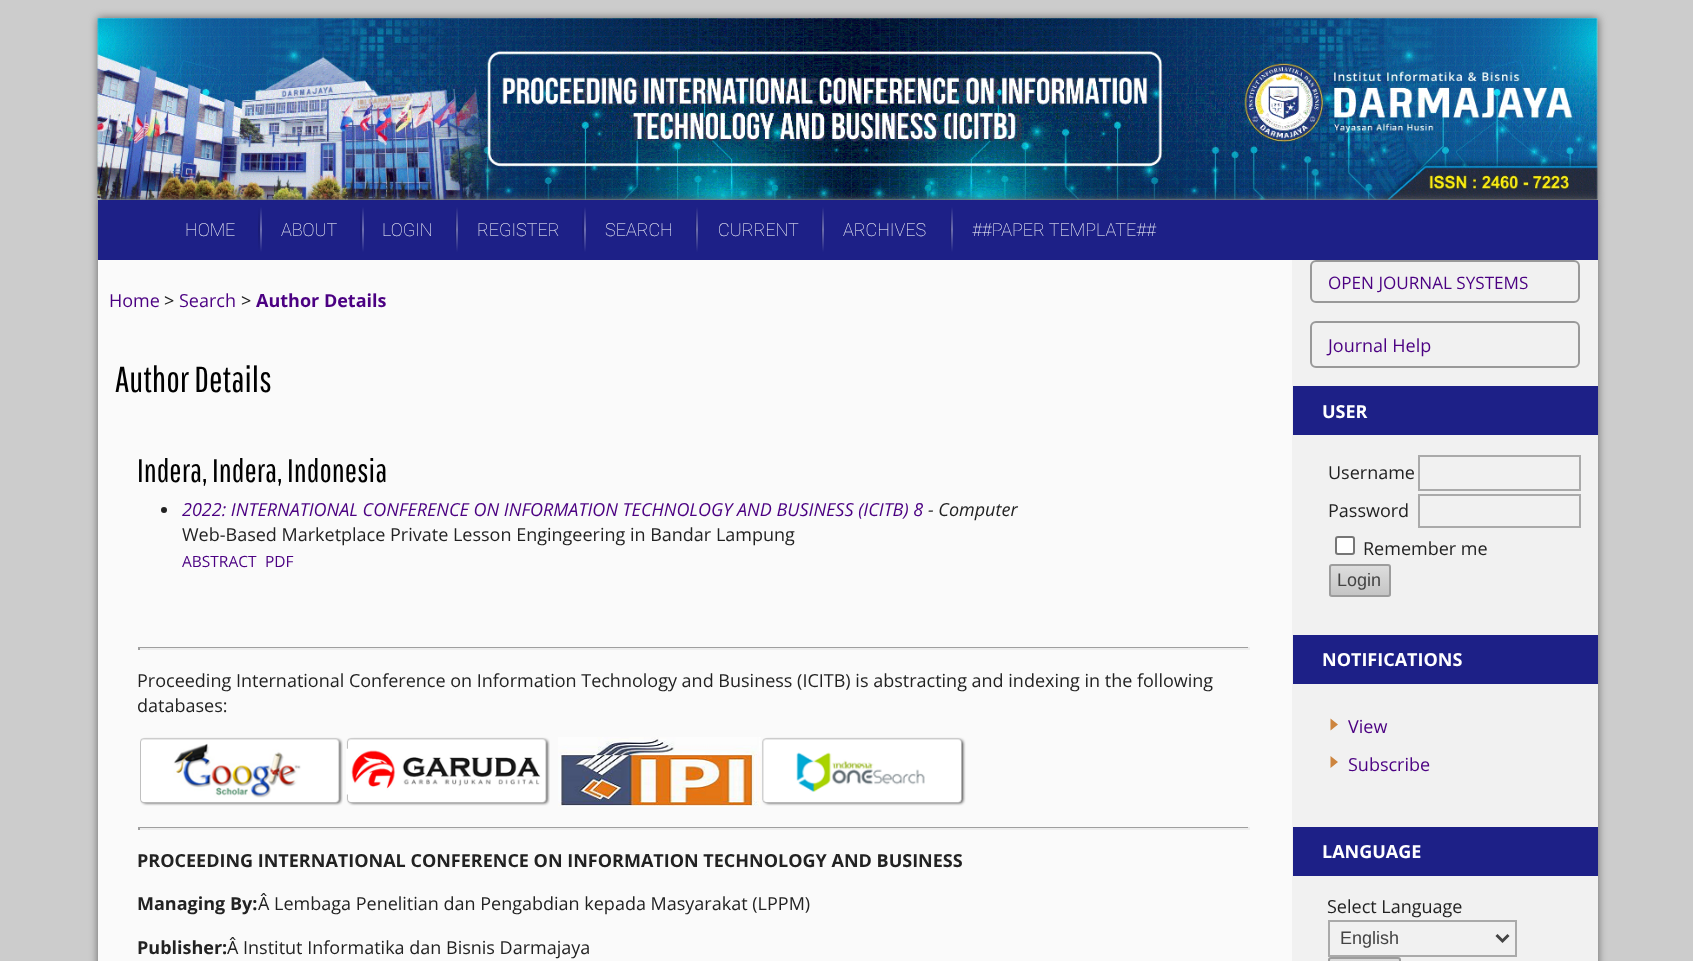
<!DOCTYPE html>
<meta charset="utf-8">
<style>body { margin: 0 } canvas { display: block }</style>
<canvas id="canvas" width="1693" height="961"></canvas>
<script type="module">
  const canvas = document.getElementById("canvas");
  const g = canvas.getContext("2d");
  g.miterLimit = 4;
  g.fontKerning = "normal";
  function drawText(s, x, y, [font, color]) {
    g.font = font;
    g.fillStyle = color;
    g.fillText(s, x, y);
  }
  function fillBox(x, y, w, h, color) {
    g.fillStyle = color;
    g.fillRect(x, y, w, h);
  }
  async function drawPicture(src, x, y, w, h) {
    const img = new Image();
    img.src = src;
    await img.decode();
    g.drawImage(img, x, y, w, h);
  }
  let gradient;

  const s1 = ["100 18px Roboto", "#FFFFFF"];
  const s2 = ["18px Open Sans", "#4B0082"];
  const s3 = ["18px Open Sans", "#222222"];
  const s4 = ["bold 18px Open Sans", "#4B0082"];
  const s5 = ["36px Pathway Gothic One", "#000000"];
  const s6 = ["32.5px Pathway Gothic One", "#000000"];
  const s7 = ["italic 18px Open Sans", "#4B0082"];
  const s8 = ["italic 18px Open Sans", "#222222"];
  const s9 = ["15.5px Open Sans", "#4B0082"];
  const s10 = ["bold 18px Open Sans", "#222222"];
  const s11 = ["17.1px Open Sans", "#4B0082"];
  const s12 = ["bold 18px Open Sans", "#FFFFFF"];
  const s13 = ["18px Liberation Sans", "#444444"];

  fillBox(0, 0, 1693, 961, "#CCCCCC");
  g.fillStyle = "#666666";
  g.filter = "blur(4px)";
  g.beginPath();
  g.rect(98, 18, 1500, 182);
  g.fill();
  g.filter = "none";
  await drawPicture("pic1.png", 97, 18, 1501, 182);
  g.filter = "blur(4px)";
  g.beginPath();
  g.rect(98, 200, 1500, 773);
  g.fill();
  g.filter = "none";
  fillBox(98, 260, 1194, 701, "#FAFAFA");
  fillBox(98, 200, 1500, 60, "#1D2087");
  drawText("HOME", 185, 236, s1);
  gradient = g.createLinearGradient(259, 207, 259, 252);
  gradient.addColorStop(0, "#1D2087");
  gradient.addColorStop(0.5, "#191B73");
  gradient.addColorStop(1, "#1D2087");
  g.fillStyle = gradient;
  g.fillRect(258, 207, 2, 45);
  gradient = g.createLinearGradient(260, 207, 260, 252);
  gradient.addColorStop(0, "#1D2087");
  gradient.addColorStop(0.5, "#6C6EB1");
  gradient.addColorStop(1, "#1D2087");
  g.fillStyle = gradient;
  g.fillRect(260, 207, 2, 45);
  drawText("ABOUT", 281, 236, s1);
  gradient = g.createLinearGradient(361, 207, 361, 252);
  gradient.addColorStop(0, "#1D2087");
  gradient.addColorStop(0.5, "#191B73");
  gradient.addColorStop(1, "#1D2087");
  g.fillStyle = gradient;
  g.fillRect(360, 207, 2, 45);
  gradient = g.createLinearGradient(362, 207, 362, 252);
  gradient.addColorStop(0, "#1D2087");
  gradient.addColorStop(0.5, "#6C6EB1");
  gradient.addColorStop(1, "#1D2087");
  g.fillStyle = gradient;
  g.fillRect(362, 207, 2, 45);
  drawText("LOGIN", 382, 236, s1);
  gradient = g.createLinearGradient(455, 207, 455, 252);
  gradient.addColorStop(0, "#1D2087");
  gradient.addColorStop(0.5, "#191B73");
  gradient.addColorStop(1, "#1D2087");
  g.fillStyle = gradient;
  g.fillRect(455, 207, 2, 45);
  gradient = g.createLinearGradient(457, 207, 457, 252);
  gradient.addColorStop(0, "rgba(255, 255, 255, 0)");
  gradient.addColorStop(0.5, "rgba(255, 255, 255, 0.35)");
  gradient.addColorStop(1, "rgba(255, 255, 255, 0)");
  g.fillStyle = gradient;
  g.fillRect(456, 207, 2, 45);
  drawText("REGISTER", 477, 236, s1);
  gradient = g.createLinearGradient(583, 207, 583, 252);
  gradient.addColorStop(0, "#1D2087");
  gradient.addColorStop(0.5, "#191B73");
  gradient.addColorStop(1, "#1D2087");
  g.fillStyle = gradient;
  g.fillRect(582, 207, 2, 45);
  gradient = g.createLinearGradient(584, 207, 584, 252);
  gradient.addColorStop(0, "#1D2087");
  gradient.addColorStop(0.5, "#6C6EB1");
  gradient.addColorStop(1, "#1D2087");
  g.fillStyle = gradient;
  g.fillRect(584, 207, 2, 45);
  drawText("SEARCH", 605, 236, s1);
  gradient = g.createLinearGradient(695, 207, 695, 252);
  gradient.addColorStop(0, "#1D2087");
  gradient.addColorStop(0.5, "#191B73");
  gradient.addColorStop(1, "#1D2087");
  g.fillStyle = gradient;
  g.fillRect(695, 207, 2, 45);
  gradient = g.createLinearGradient(697, 207, 697, 252);
  gradient.addColorStop(0, "rgba(255, 255, 255, 0)");
  gradient.addColorStop(0.5, "rgba(255, 255, 255, 0.35)");
  gradient.addColorStop(1, "rgba(255, 255, 255, 0)");
  g.fillStyle = gradient;
  g.fillRect(696, 207, 2, 45);
  drawText("CURRENT", 718, 236, s1);
  gradient = g.createLinearGradient(821, 207, 821, 252);
  gradient.addColorStop(0, "#1D2087");
  gradient.addColorStop(0.5, "#191B73");
  gradient.addColorStop(1, "#1D2087");
  g.fillStyle = gradient;
  g.fillRect(821, 207, 2, 45);
  gradient = g.createLinearGradient(823, 207, 823, 252);
  gradient.addColorStop(0, "rgba(255, 255, 255, 0)");
  gradient.addColorStop(0.5, "rgba(255, 255, 255, 0.35)");
  gradient.addColorStop(1, "rgba(255, 255, 255, 0)");
  g.fillStyle = gradient;
  g.fillRect(822, 207, 2, 45);
  drawText("ARCHIVES", 843, 236, s1);
  gradient = g.createLinearGradient(950, 207, 950, 252);
  gradient.addColorStop(0, "#1D2087");
  gradient.addColorStop(0.5, "#191B73");
  gradient.addColorStop(1, "#1D2087");
  g.fillStyle = gradient;
  g.fillRect(950, 207, 2, 45);
  gradient = g.createLinearGradient(952, 207, 952, 252);
  gradient.addColorStop(0, "rgba(255, 255, 255, 0)");
  gradient.addColorStop(0.5, "rgba(255, 255, 255, 0.35)");
  gradient.addColorStop(1, "rgba(255, 255, 255, 0)");
  g.fillStyle = gradient;
  g.fillRect(951, 207, 2, 45);
  drawText("##PAPER TEMPLATE##", 972, 236, s1);
  drawText("Home", 109, 307, s2);
  drawText(">", 164, 307, s3);
  drawText("Search", 179, 307, s2);
  drawText(">", 241, 307, s3);
  drawText("Author Details", 256, 307, s4);
  drawText("Author Details", 115, 392, s5);
  drawText("Indera, Indera, Indonesia", 137, 482, s6);
  g.fillStyle = "#222222";
  g.beginPath();
  g.arc(164, 510, 3, 0, Math.PI * 2);
  g.fill();
  drawText("2022: INTERNATIONAL CONFERENCE ON INFORMATION TECHNOLOGY AND BUSINESS (ICITB) 8", 182, 516, s7);
  drawText("- Computer", 928, 516, s8);
  drawText("Web-Based Marketplace Private Lesson Engingeering in Bandar Lampung", 182, 541, s3);
  drawText("ABSTRACT", 182, 567, s9);
  drawText("PDF", 265, 567, s9);
  fillBox(138, 647, 1112, 1, "#9F9F9F");
  fillBox(1248, 647, 2, 3, "#EEEEEE");
  fillBox(138, 648, 1112, 2, "#EEEEEE");
  fillBox(138, 647, 2, 3, "#9F9F9F");
  drawText("Proceeding International Conference on Information Technology and Business (ICITB) is abstracting and indexing in the following", 137, 687, s3);
  drawText("databases:", 137, 712, s3);
  await drawPicture("pic2.png", 140, 737, 203, 69);
  await drawPicture("pic3.png", 346, 737, 204, 69);
  await drawPicture("pic4.png", 558, 737, 203, 70);
  await drawPicture("pic5.png", 762, 737, 204, 69);
  fillBox(138, 827, 1112, 1, "#9F9F9F");
  fillBox(1248, 827, 2, 3, "#EEEEEE");
  fillBox(138, 828, 1112, 2, "#EEEEEE");
  fillBox(138, 827, 2, 3, "#9F9F9F");
  drawText("PROCEEDING INTERNATIONAL CONFERENCE ON INFORMATION TECHNOLOGY AND BUSINESS", 137, 867, s10);
  drawText("Managing By:", 137, 910, s10);
  drawText("Â Lembaga Penelitian dan Pengabdian kepada Masyarakat (LPPM)", 258, 910, s3);
  drawText("Publisher:", 137, 954, s10);
  drawText("Â Institut Informatika dan Bisnis Darmajaya", 227, 954, s3);
  fillBox(1292, 260, 306, 701, "#F1F1F1");
  g.beginPath();
  g.roundRect(1311, 261, 268, 41, 5);
  g.strokeStyle = "#999999";
  g.lineWidth = 2;
  g.stroke();
  drawText("OPEN JOURNAL SYSTEMS", 1328, 289, s11);
  g.beginPath();
  g.roundRect(1311, 322, 268, 45, 5);
  g.stroke();
  drawText("Journal Help", 1328, 352, s2);
  fillBox(1293, 386, 305, 49, "#1D2087");
  drawText("USER", 1322, 418, s12);
  drawText("Username", 1328, 479, s3);
  g.strokeStyle = "#AAAAAA";
  g.strokeRect(1419, 456, 161, 34);
  drawText("Password", 1328, 517, s3);
  g.strokeRect(1419, 495, 161, 32);
  g.fillStyle = "#FFFFFF";
  g.beginPath();
  g.roundRect(1336, 537, 18, 17, 2);
  g.fill();
  g.strokeStyle = "#767676";
  g.stroke();
  drawText("Remember me", 1363, 555, s3);
  g.save();
  g.beginPath();
  g.roundRect(1329, 564, 62, 33, 3);
  g.clip();
  gradient = g.createLinearGradient(1360, 566, 1360, 596);
  gradient.addColorStop(0, "#DDDDDD");
  gradient.addColorStop(1, "#C4C4C4");
  g.fillStyle = gradient;
  g.fillRect(1329, 566, 62, 30);
  g.restore();
  g.beginPath();
  g.roundRect(1330, 565, 60, 31, 2);
  g.strokeStyle = "#9D9D9D";
  g.stroke();
  drawText("Login", 1337, 586, s13);
  fillBox(1293, 635, 305, 49, "#1D2087");
  drawText("NOTIFICATIONS", 1322, 666, s12);
  g.fillStyle = "#CD853F";
  g.beginPath();
  g.moveTo(1330.5, 730.5);
  g.lineTo(1330.5, 718.5);
  g.lineTo(1338, 724.5);
  g.closePath();
  g.moveTo(1330.5, 768);
  g.lineTo(1330.5, 756);
  g.lineTo(1338, 762);
  g.closePath();
  g.fill();
  drawText("View", 1348, 733, s2);
  drawText("Subscribe", 1348, 771, s2);
  fillBox(1293, 827, 305, 49, "#1D2087");
  drawText("LANGUAGE", 1322, 858, s12);
  drawText("Select Language", 1327, 913, s3);
  g.strokeStyle = "#AAAAAA";
  g.strokeRect(1329, 921, 187, 35);
  g.beginPath();
  g.moveTo(1496.5, 935);
  g.lineTo(1502.5, 941);
  g.lineTo(1508.5, 935);
  g.strokeStyle = "#444444";
  g.lineWidth = 3;
  g.stroke();
  drawText("English", 1340, 944, s13);
  gradient = g.createLinearGradient(1364, 959, 1364, 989);
  gradient.addColorStop(0, "#DDDDDD");
  gradient.addColorStop(1, "#C4C4C4");
  g.fillStyle = gradient;
  g.fillRect(1328, 959, 73, 2);
  g.beginPath();
  g.roundRect(1329, 958, 71, 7, 2);
  g.strokeStyle = "#9D9D9D";
  g.lineWidth = 2;
  g.stroke();
</script>
